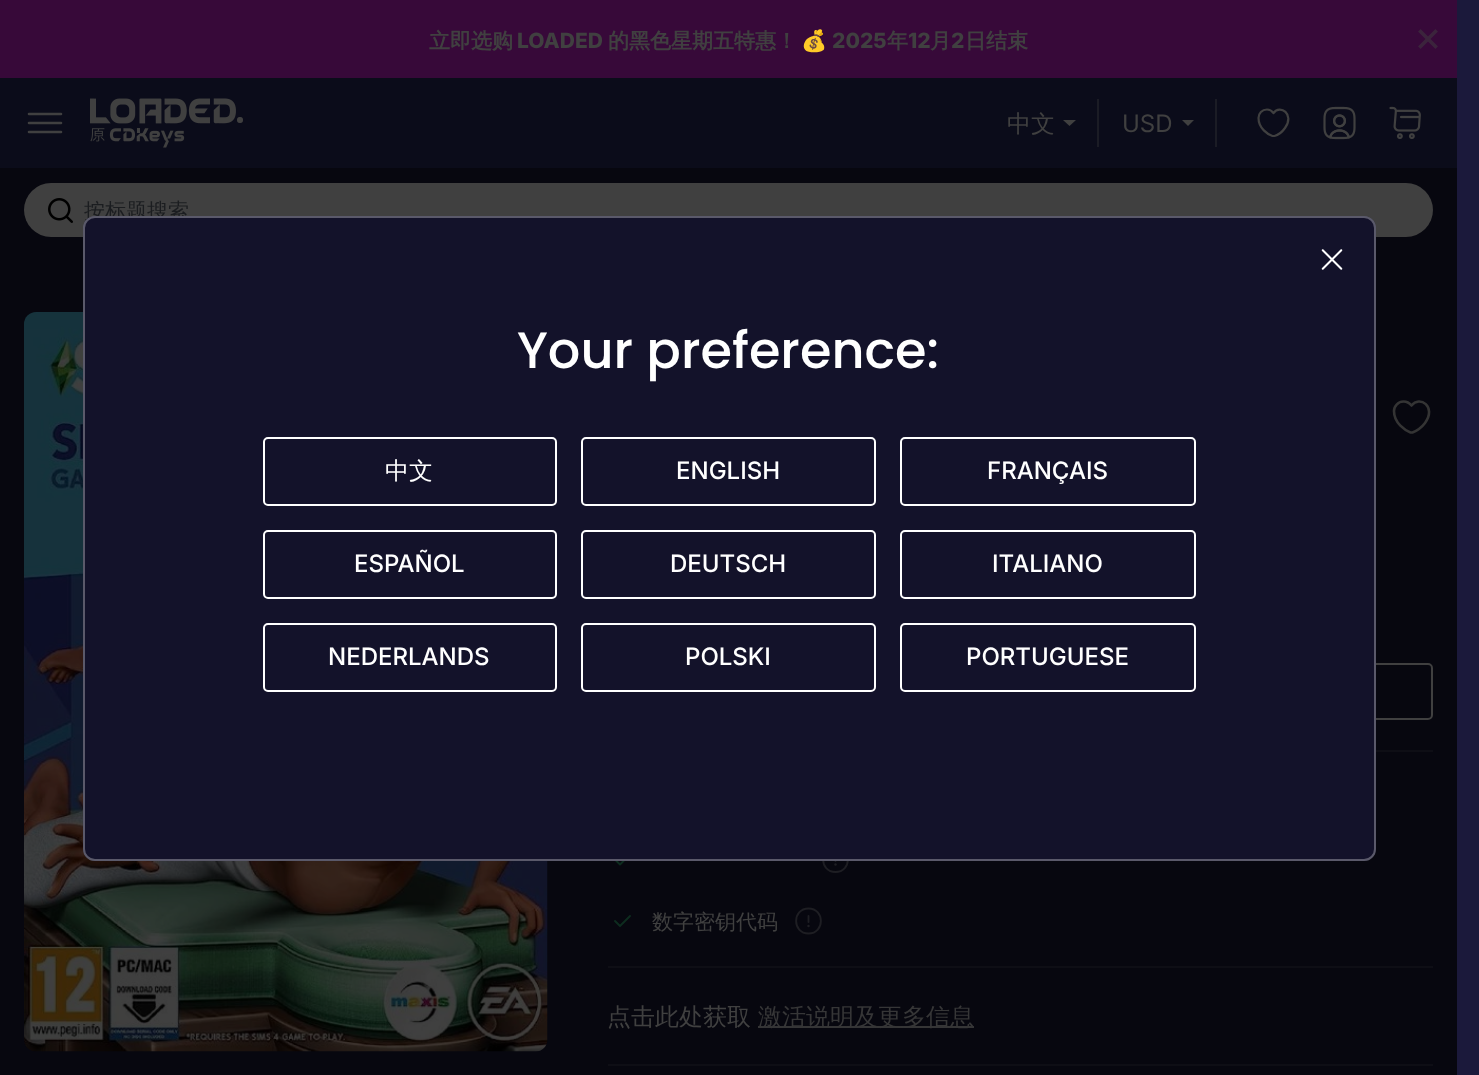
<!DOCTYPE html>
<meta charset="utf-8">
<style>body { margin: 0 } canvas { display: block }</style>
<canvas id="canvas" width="1479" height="1075"></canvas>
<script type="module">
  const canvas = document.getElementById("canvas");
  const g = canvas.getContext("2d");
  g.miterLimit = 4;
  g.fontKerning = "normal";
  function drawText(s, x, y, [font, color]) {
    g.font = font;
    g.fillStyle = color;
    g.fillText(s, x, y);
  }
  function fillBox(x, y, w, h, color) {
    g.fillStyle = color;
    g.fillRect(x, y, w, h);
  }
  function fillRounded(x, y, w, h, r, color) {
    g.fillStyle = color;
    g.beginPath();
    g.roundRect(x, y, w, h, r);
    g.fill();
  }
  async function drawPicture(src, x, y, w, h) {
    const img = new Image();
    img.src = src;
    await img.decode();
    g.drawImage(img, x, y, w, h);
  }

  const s1 = ["bold 21px WenQuanYi Zen Hei", "#404040"];
  const s2 = ["800 21px Inter", "#404040"];
  const s3 = ["bold 21px Noto Color Emoji", "#404040"];
  const s4 = ["500 24px WenQuanYi Zen Hei", "#404040"];
  const s5 = ["24px Inter", "#404040"];
  const s6 = ["500 21px WenQuanYi Zen Hei", "#1B1D20"];
  const s7 = ["500 21px WenQuanYi Zen Hei", "#404040"];
  const s8 = ["500 24px WenQuanYi Zen Hei", "#363637"];
  const s9 = ["500 51px Poppins", "#FFFFFF"];
  const s10 = ["500 24px WenQuanYi Zen Hei", "#FFFFFF"];
  const s11 = ["500 24px Inter", "#FFFFFF"];

  fillBox(0, 0, 1479, 1075, "#1B193B");
  fillBox(0, 168, 1457, 907, "#07070F");
  fillBox(0, 0, 1457, 78, "#370939");
  drawText("立即选购", 429, 48, s1);
  drawText("LOADED", 517, 48, s2);
  drawText("的黑色星期五特惠！", 608, 48, s1);
  drawText("💰", 801, 48, s3);
  drawText("2025", 832, 48, s2);
  drawText("年", 887, 48, s1);
  drawText("12", 908, 48, s2);
  drawText("月", 930, 48, s1);
  drawText("2", 951, 48, s2);
  drawText("日结束", 965, 48, s1);
  await drawPicture("pic1.png", 1418, 29, 20, 20);
  fillBox(0, 78, 1457, 90, "#0B0C1A");
  g.beginPath();
  g.moveTo(29, 114);
  g.lineTo(61, 114);
  g.moveTo(29, 123);
  g.lineTo(61, 123);
  g.moveTo(29, 132);
  g.lineTo(61, 132);
  g.strokeStyle = "#404040";
  g.lineWidth = 2.6;
  g.lineCap = "round";
  g.stroke();
  await drawPicture("pic2.png", 90, 98, 153, 50);
  fillBox(1097, 99, 2, 48, "#1B1C25");
  drawText("中文", 1007, 132, s4);
  g.beginPath();
  g.moveTo(1063, 120);
  g.lineTo(1069.5, 126);
  g.lineTo(1076, 120);
  g.closePath();
  g.fill();
  fillBox(1215, 99, 2, 48, "#1B1C25");
  drawText("USD", 1122, 132, s5);
  g.beginPath();
  g.moveTo(1182, 120);
  g.lineTo(1188, 126);
  g.lineTo(1194, 120);
  g.closePath();
  g.fill();
  g.beginPath();
  g.moveTo(1274.5, 136);
  g.lineTo(1272.5, 136);
  g.bezierCurveTo(1268, 134.5, 1258.5, 128.5, 1258.5, 118);
  g.bezierCurveTo(1258.5, 113.5, 1262, 109.5, 1267, 109.5);
  g.bezierCurveTo(1269.5, 109.5, 1272, 111, 1273.5, 113);
  g.bezierCurveTo(1280, 104, 1295, 114, 1285, 128);
  g.bezierCurveTo(1282.5, 131.5, 1278.5, 135, 1274.5, 136);
  g.closePath();
  g.lineWidth = 2.2;
  g.lineJoin = "round";
  g.stroke();
  await drawPicture("pic3.png", 1323, 106, 33, 34);
  await drawPicture("pic4.png", 1389, 106, 32, 34);
  fillRounded(24, 183, 1409, 54, 27, "#404040");
  await drawPicture("pic5.png", 48, 198, 25, 25);
  drawText("按标题搜索", 84, 218, s6);
  await drawPicture("pic6.png", 24, 312, 524, 740);
  g.beginPath();
  g.moveTo(1412.5, 432.5);
  g.bezierCurveTo(1412, 432.5, 1411, 432.5, 1410.5, 432.5);
  g.bezierCurveTo(1405.5, 430.5, 1394, 423.5, 1394, 411);
  g.bezierCurveTo(1394, 406, 1398.5, 401.5, 1403.5, 401.5);
  g.bezierCurveTo(1407, 401.5, 1409.5, 403, 1411.5, 405.5);
  g.bezierCurveTo(1419.5, 395, 1437, 406.5, 1425, 423);
  g.bezierCurveTo(1422, 427, 1417.5, 430.5, 1412.5, 432.5);
  g.closePath();
  g.strokeStyle = "#343434";
  g.lineWidth = 2.6;
  g.stroke();
  g.beginPath();
  g.roundRect(609, 664, 823, 55, 4);
  g.strokeStyle = "#404040";
  g.lineWidth = 2;
  g.lineJoin = "miter";
  g.stroke();
  fillBox(1376, 750, 57, 2, "#0E0E15");
  fillBox(608, 966, 825, 2, "#0E0E15");
  g.beginPath();
  g.moveTo(615, 859.5);
  g.lineTo(620, 864.5);
  g.lineTo(630, 854.5);
  g.strokeStyle = "#0D2C1F";
  g.lineWidth = 1.9;
  g.lineJoin = "round";
  g.stroke();
  g.beginPath();
  g.moveTo(835.5, 872);
  g.bezierCurveTo(852, 872, 852, 847, 835.5, 847);
  g.bezierCurveTo(819, 847, 819, 872, 835.5, 872);
  g.closePath();
  g.moveTo(835.5, 854.5);
  g.lineTo(835.5, 861);
  g.strokeStyle = "#1E1E23";
  g.stroke();
  g.beginPath();
  g.moveTo(835.5, 864.5);
  g.lineTo(835.5, 864.5);
  g.lineWidth = 2.5;
  g.stroke();
  g.beginPath();
  g.moveTo(615, 921);
  g.lineTo(620, 926);
  g.lineTo(630, 916);
  g.strokeStyle = "#0D2C1F";
  g.lineWidth = 1.9;
  g.stroke();
  drawText("数字密钥代码", 652, 929, s7);
  g.beginPath();
  g.moveTo(808.5, 933.5);
  g.bezierCurveTo(825, 933.5, 825, 908.5, 808.5, 908.5);
  g.bezierCurveTo(792, 908.5, 792, 933.5, 808.5, 933.5);
  g.closePath();
  g.moveTo(808.5, 916);
  g.lineTo(808.5, 922);
  g.strokeStyle = "#1E1E23";
  g.stroke();
  g.beginPath();
  g.moveTo(808.5, 926);
  g.lineTo(808.5, 926);
  g.lineWidth = 2.5;
  g.stroke();
  fillBox(608, 1064, 825, 2, "#0E0E15");
  drawText("点击此处获取", 607, 1025, s4);
  fillBox(758, 1026, 216, 2, "#353536");
  drawText("激活说明及更多信息", 758, 1025, s8);
  g.beginPath();
  g.roundRect(84, 217, 1291, 643, 11);
  g.strokeStyle = "rgba(128, 128, 128, 0.3)";
  g.lineWidth = 2;
  g.lineJoin = "miter";
  g.stroke();
  fillRounded(83, 216, 1293, 645, 12, "#13122A");
  g.beginPath();
  g.roundRect(84, 217, 1291, 643, 11);
  g.strokeStyle = "rgba(255, 255, 255, 0.3)";
  g.stroke();
  await drawPicture("pic7.png", 1321, 249, 22, 21);
  drawText("Your preference:", 517, 368, s9);
  g.beginPath();
  g.roundRect(264, 438, 292, 67, 4);
  g.strokeStyle = "#FFFFFF";
  g.stroke();
  drawText("中文", 385, 479, s10);
  g.beginPath();
  g.roundRect(582, 438, 293, 67, 4);
  g.stroke();
  drawText("ENGLISH", 676, 479, s11);
  g.beginPath();
  g.roundRect(901, 438, 294, 67, 4);
  g.stroke();
  drawText("FRANÇAIS", 987, 479, s11);
  g.beginPath();
  g.roundRect(264, 531, 292, 67, 4);
  g.stroke();
  drawText("ESPAÑOL", 354, 572, s11);
  g.beginPath();
  g.roundRect(582, 531, 293, 67, 4);
  g.stroke();
  drawText("DEUTSCH", 670, 572, s11);
  g.beginPath();
  g.roundRect(901, 531, 294, 67, 4);
  g.stroke();
  drawText("ITALIANO", 992, 572, s11);
  g.beginPath();
  g.roundRect(264, 624, 292, 67, 4);
  g.stroke();
  drawText("NEDERLANDS", 328, 665, s11);
  g.beginPath();
  g.roundRect(582, 624, 293, 67, 4);
  g.stroke();
  drawText("POLSKI", 685, 665, s11);
  g.beginPath();
  g.roundRect(901, 624, 294, 67, 4);
  g.stroke();
  drawText("PORTUGUESE", 966, 665, s11);
</script>
